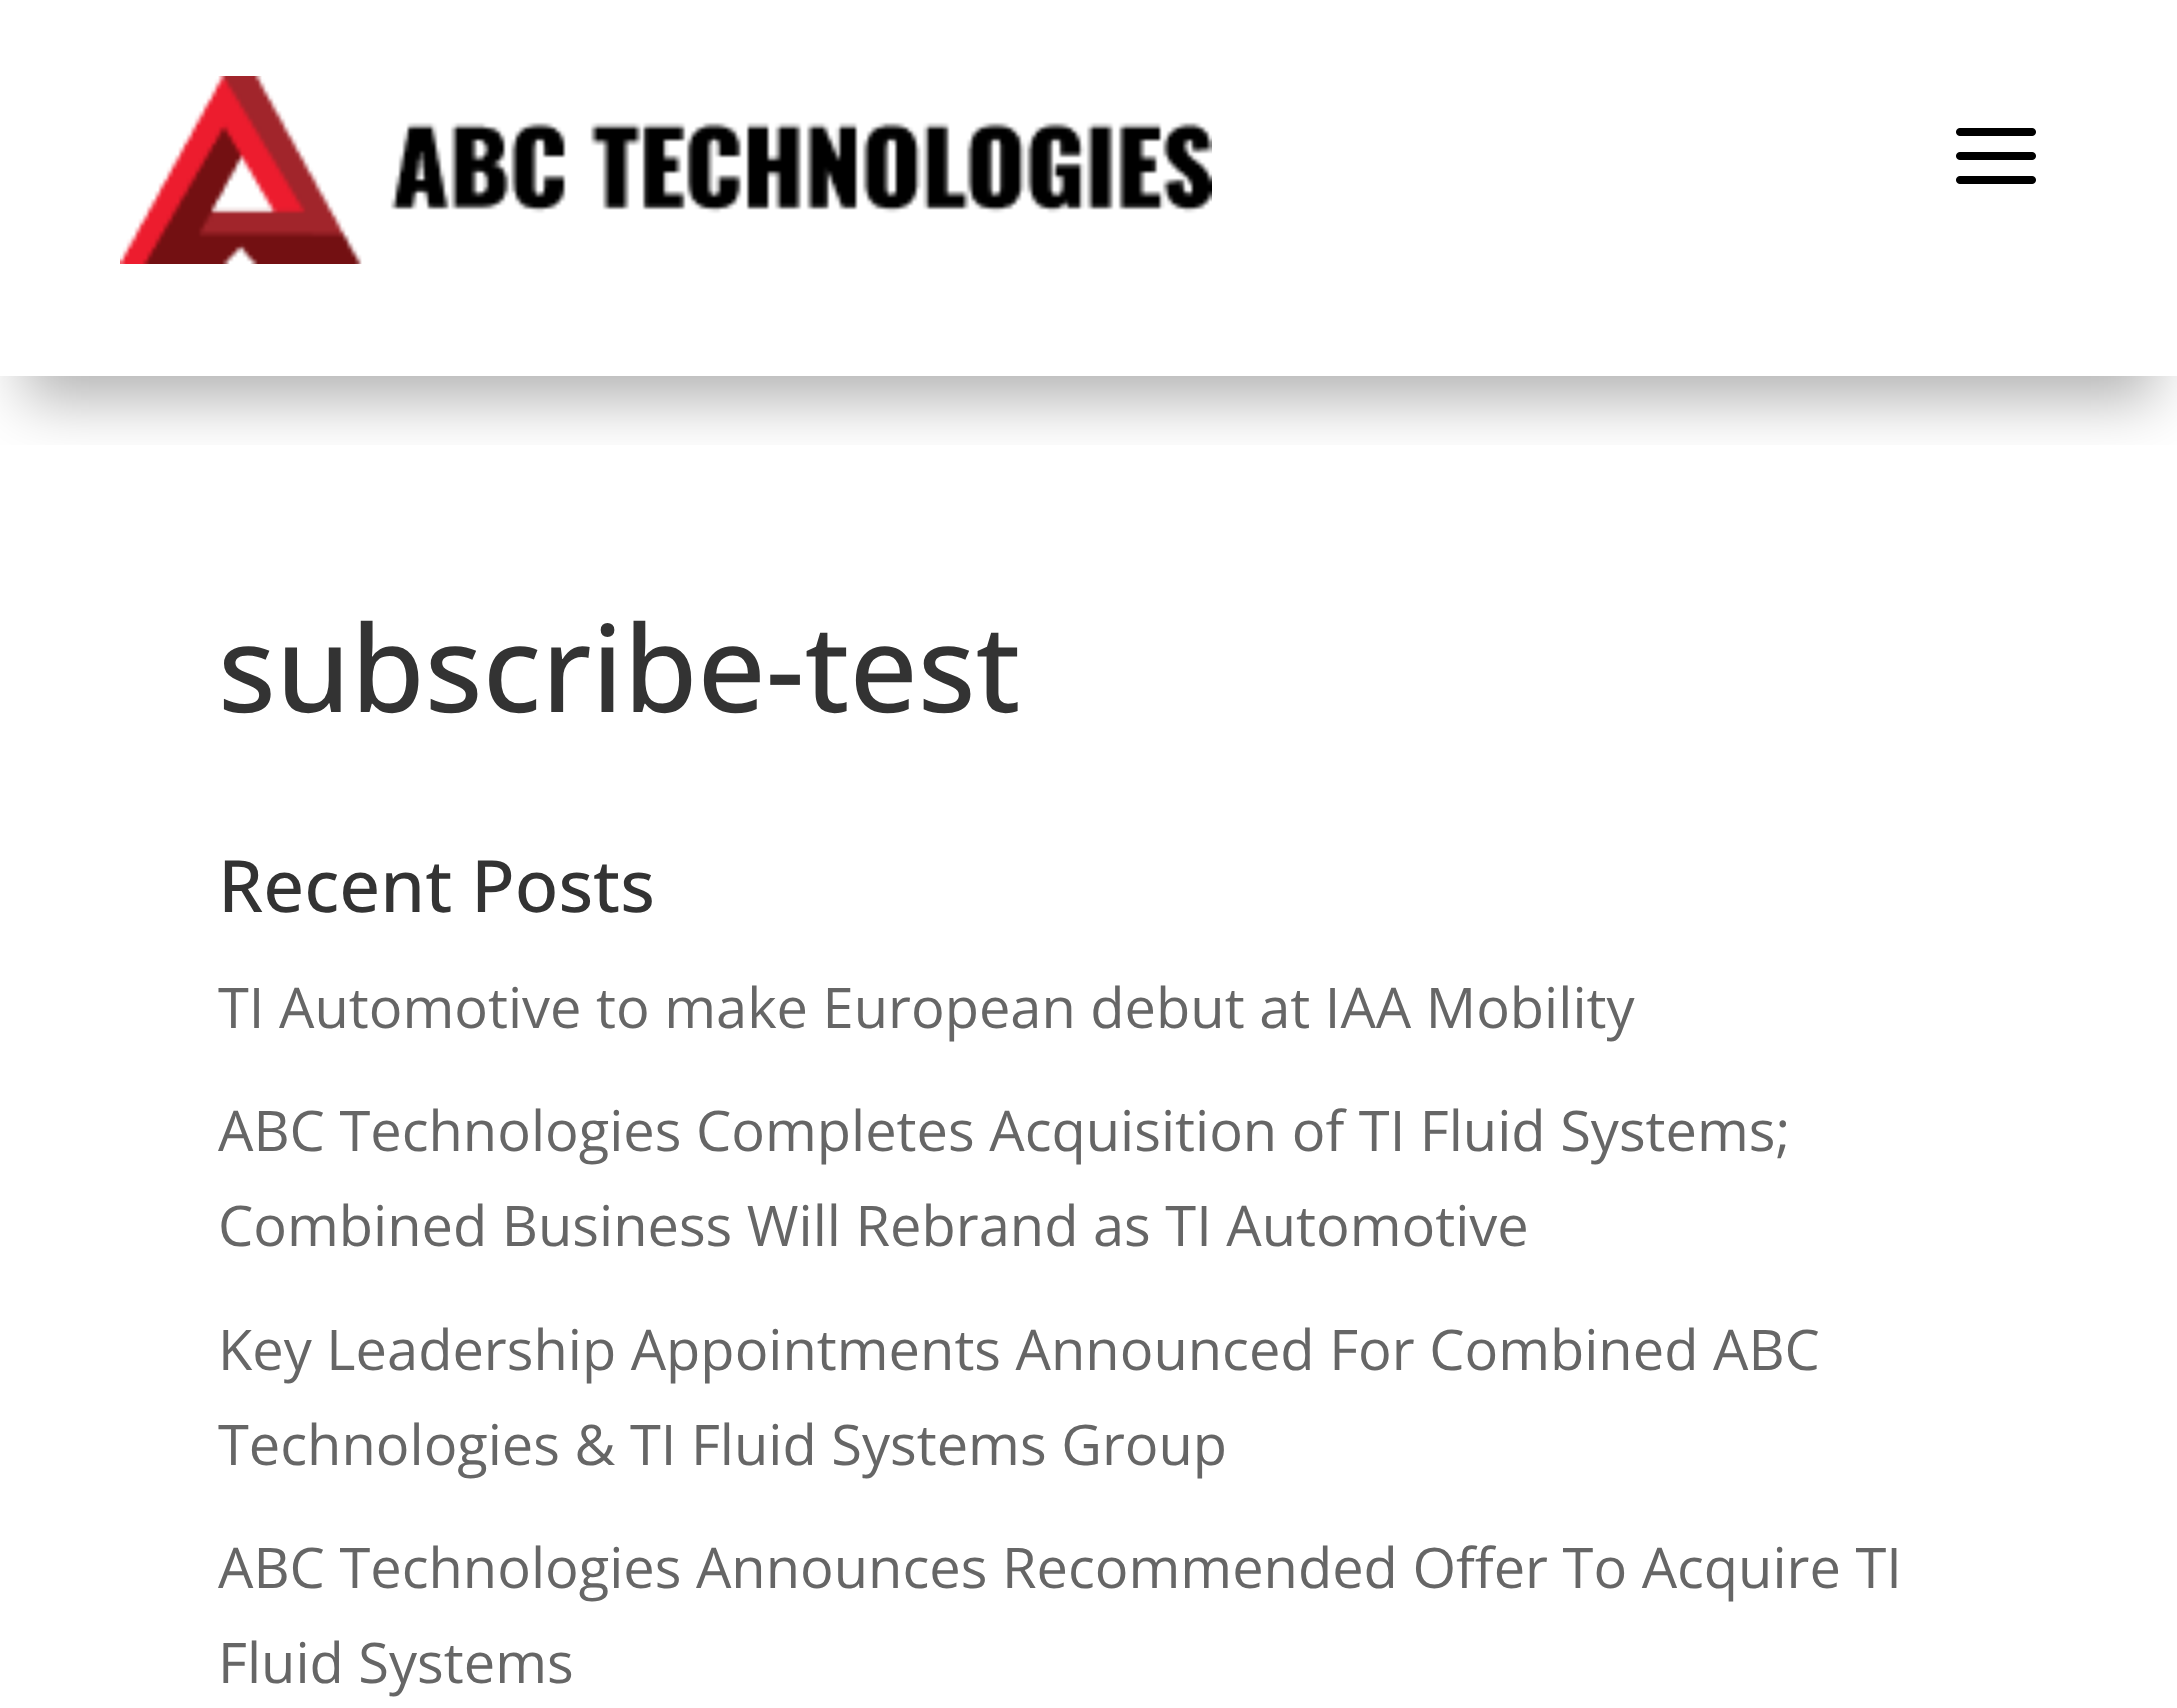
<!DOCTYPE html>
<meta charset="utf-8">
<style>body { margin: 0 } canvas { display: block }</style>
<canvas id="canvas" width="2177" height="1708"></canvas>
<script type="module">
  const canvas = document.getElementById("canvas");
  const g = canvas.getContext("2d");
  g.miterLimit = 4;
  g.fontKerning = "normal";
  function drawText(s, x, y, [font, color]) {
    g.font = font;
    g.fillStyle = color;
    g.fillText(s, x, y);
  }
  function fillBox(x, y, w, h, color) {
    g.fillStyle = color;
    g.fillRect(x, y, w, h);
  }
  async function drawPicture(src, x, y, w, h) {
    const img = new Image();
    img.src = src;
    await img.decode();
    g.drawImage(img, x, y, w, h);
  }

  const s1 = ["500 120px Open Sans", "#333333"];
  const s2 = ["500 72px Open Sans", "#333333"];
  const s3 = ["56px Open Sans", "#666666"];

  fillBox(0, 0, 2177, 1708, "#FFFFFF");
  g.save();
  g.beginPath();
  g.rect(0, 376, 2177, 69);
  g.clip();
  g.fillStyle = "rgba(0, 0, 0, 0.3)";
  g.filter = "blur(30px)";
  g.beginPath();
  g.rect(24, 36, 2132, 364);
  g.fill();
  g.filter = "none";
  g.restore();
  await drawPicture("pic1.png", 120, 76, 1092, 188);
  await drawPicture("pic2.png", 1956, 128, 80, 56);
  drawText("subscribe-test", 218, 712, s1);
  drawText("Recent Posts", 218, 912, s2);
  drawText("TI Automotive to make European debut at IAA Mobility", 218, 1028, s3);
  drawText("ABC Technologies Completes Acquisition of TI Fluid Systems;", 218, 1151, s3);
  drawText("Combined Business Will Rebrand as TI Automotive", 218, 1246, s3);
  drawText("Key Leadership Appointments Announced For Combined ABC", 218, 1370, s3);
  drawText("Technologies & TI Fluid Systems Group", 218, 1465, s3);
  drawText("ABC Technologies Announces Recommended Offer To Acquire TI", 218, 1588, s3);
  drawText("Fluid Systems", 218, 1683, s3);
</script>
